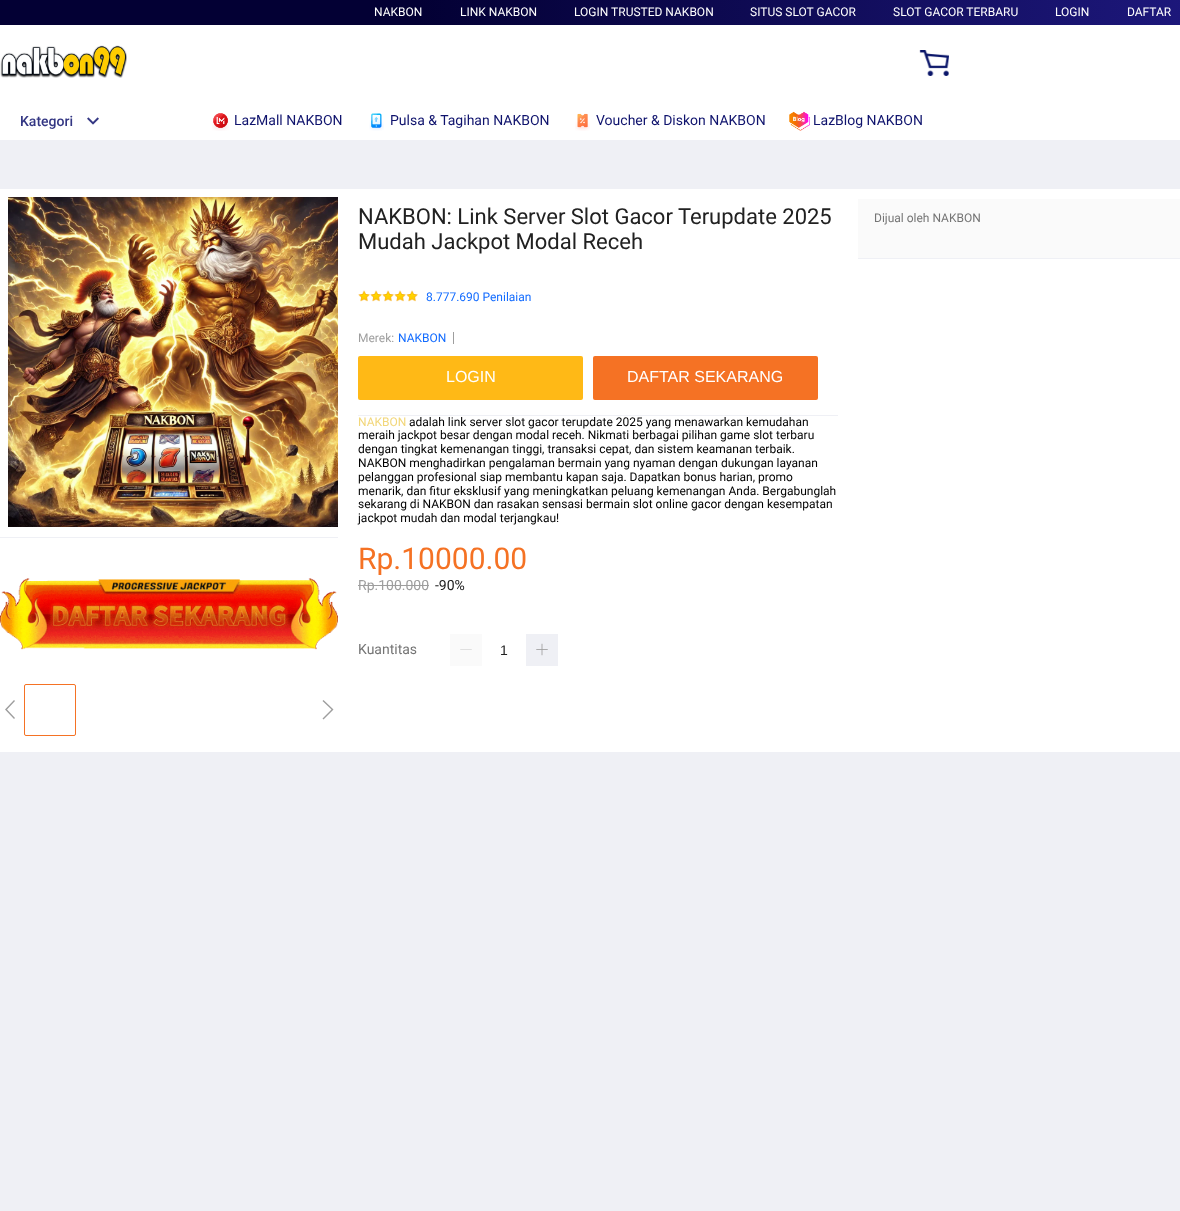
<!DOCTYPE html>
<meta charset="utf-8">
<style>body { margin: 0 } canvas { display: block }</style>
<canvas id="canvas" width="1180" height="1211"></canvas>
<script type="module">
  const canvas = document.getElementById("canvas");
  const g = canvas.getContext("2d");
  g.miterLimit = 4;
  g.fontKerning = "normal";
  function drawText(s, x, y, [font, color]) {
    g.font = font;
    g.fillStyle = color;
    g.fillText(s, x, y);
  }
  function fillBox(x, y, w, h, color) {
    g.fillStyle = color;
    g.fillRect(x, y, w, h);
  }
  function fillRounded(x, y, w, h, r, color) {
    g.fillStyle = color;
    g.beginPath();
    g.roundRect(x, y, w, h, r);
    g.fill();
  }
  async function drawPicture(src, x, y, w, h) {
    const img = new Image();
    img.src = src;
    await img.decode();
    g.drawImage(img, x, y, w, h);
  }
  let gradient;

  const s1 = ["12px Roboto", "#FFFFFF"];
  const s2 = ["500 14px Roboto", "#333683"];
  const s3 = ["14px Roboto", "#0F136D"];
  const s4 = ["22px Roboto", "#212121"];
  const s5 = ["12px Roboto", "#136CFF"];
  const s6 = ["12px Roboto", "#9E9E9E"];
  const s7 = ["16px Liberation Sans", "#FFFFFF"];
  const s8 = ["12px Roboto", "#F2D77B"];
  const s9 = ["12px Roboto", "#000000"];
  const s10 = ["30px Roboto", "#F57224"];
  const s11 = ["14px Roboto", "#9E9E9E"];
  const s12 = ["14px Roboto", "#212121"];
  const s13 = ["14px Roboto", "#757575"];
  const s14 = ["14px Liberation Sans", "#212121"];
  const s15 = ["12px Roboto", "#757575"];

  fillBox(0, 0, 1180, 1211, "#EFF0F5");
  fillBox(0, 25, 1180, 115, "#FFFFFF");
  gradient = g.createLinearGradient(0, 14, 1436, 11);
  gradient.addColorStop(0.29, "#030034");
  gradient.addColorStop(1, "#251F92");
  g.fillStyle = gradient;
  g.fillRect(0, 0, 1180, 25);
  drawText("NAKBON", 374, 16, s1);
  drawText("LINK NAKBON", 460, 16, s1);
  drawText("LOGIN TRUSTED NAKBON", 574, 16, s1);
  drawText("SITUS SLOT GACOR", 750, 16, s1);
  drawText("SLOT GACOR TERBARU", 893, 16, s1);
  drawText("LOGIN", 1055, 16, s1);
  drawText("DAFTAR", 1127, 16, s1);
  await drawPicture("pic1.png", 0, 45, 127, 33);
  await drawPicture("pic2.png", 919, 50, 30, 26);
  drawText("Kategori", 20, 126, s2);
  await drawPicture("pic3.png", 87, 117, 12, 8);
  await drawPicture("pic4.png", 212, 113, 17, 18);
  drawText("LazMall NAKBON", 234, 125, s3);
  await drawPicture("pic5.png", 369, 113, 15, 18);
  drawText("Pulsa & Tagihan NAKBON", 390, 125, s3);
  await drawPicture("pic6.png", 575, 113, 15, 18);
  drawText("Voucher & Diskon NAKBON", 596, 125, s3);
  await drawPicture("pic7.png", 789, 111, 21, 20);
  drawText("LazBlog NAKBON", 813, 125, s3);
  fillBox(0, 189, 1180, 563, "#FFFFFF");
  fillBox(0, 537, 338, 1, "#EFF0F5");
  await drawPicture("pic8.png", 8, 197, 330, 330);
  await drawPicture("pic9.png", 0, 578, 338, 72);
  g.fillStyle = "#9E9E9E";
  g.beginPath();
  g.moveTo(15, 718);
  g.lineTo(7, 709.5);
  g.lineTo(15, 701);
  g.lineTo(14, 700);
  g.lineTo(5, 709.5);
  g.lineTo(14, 719);
  g.closePath();
  g.fill();
  g.beginPath();
  g.roundRect(24.5, 684.5, 51, 51, 1.5);
  g.strokeStyle = "#F57224";
  g.stroke();
  g.beginPath();
  g.moveTo(323.5, 719.5);
  g.lineTo(322.5, 718.5);
  g.lineTo(331.5, 709.5);
  g.lineTo(322.5, 701);
  g.lineTo(323.5, 700);
  g.lineTo(333.5, 709.5);
  g.closePath();
  g.fill();
  drawText("NAKBON: Link Server Slot Gacor Terupdate 2025", 358, 224, s4);
  drawText("Mudah Jackpot Modal Receh", 358, 249, s4);
  await drawPicture("pic10.png", 358, 290, 12, 12);
  await drawPicture("pic10.png", 370, 290, 12, 12);
  await drawPicture("pic10.png", 382, 290, 12, 12);
  await drawPicture("pic10.png", 394, 290, 12, 12);
  await drawPicture("pic10.png", 406, 290, 12, 12);
  drawText("8.777.690 Penilaian", 426, 301, s5);
  fillBox(358, 415, 480, 1, "#EFF0F5");
  drawText("Merek:", 358, 342, s6);
  drawText("NAKBON", 398, 342, s5);
  fillBox(453, 332, 1, 12, "#9E9E9E");
  fillRounded(358, 356, 225, 44, 2, "#FFB916");
  drawText("LOGIN", 446, 382, s7);
  fillRounded(593, 356, 225, 44, 2, "#F57224");
  drawText("DAFTAR SEKARANG", 627, 382, s7);
  drawText("NAKBON", 358, 426, s8);
  drawText("adalah link server slot gacor terupdate 2025 yang menawarkan kemudahan", 409, 426, s9);
  drawText("meraih jackpot besar dengan modal receh. Nikmati berbagai pilihan game slot terbaru", 358, 439, s9);
  drawText("dengan tingkat kemenangan tinggi, transaksi cepat, dan sistem keamanan terbaik.", 358, 453, s9);
  drawText("NAKBON menghadirkan pengalaman bermain yang nyaman dengan dukungan layanan", 358, 467, s9);
  drawText("pelanggan profesional siap membantu kapan saja. Dapatkan bonus harian, promo", 358, 481, s9);
  drawText("menarik, dan fitur eksklusif yang meningkatkan peluang kemenangan Anda. Bergabunglah", 358, 495, s9);
  drawText("sekarang di NAKBON dan rasakan sensasi bermain slot online gacor dengan kesempatan", 358, 508, s9);
  drawText("jackpot mudah dan modal terjangkau!", 358, 522, s9);
  drawText("Rp.10000.00", 358, 569, s10);
  drawText("Rp.100.000", 358, 590, s11);
  fillBox(358, 585, 71, 1, "#9E9E9E");
  drawText("-90%", 435, 590, s12);
  drawText("Kuantitas", 358, 654, s13);
  fillBox(450, 634, 32, 32, "#FAFAFA");
  await drawPicture("pic11.png", 460, 649, 12, 1);
  fillBox(526, 634, 32, 32, "#EFF0F5");
  await drawPicture("pic12.png", 536, 643, 12, 13);
  drawText("1", 500, 655, s14);
  fillBox(858, 199, 322, 59, "#FAFAFA");
  drawText("Dijual oleh NAKBON", 874, 222, s15);
  fillBox(858, 258, 322, 1, "#EFF0F5");
</script>
